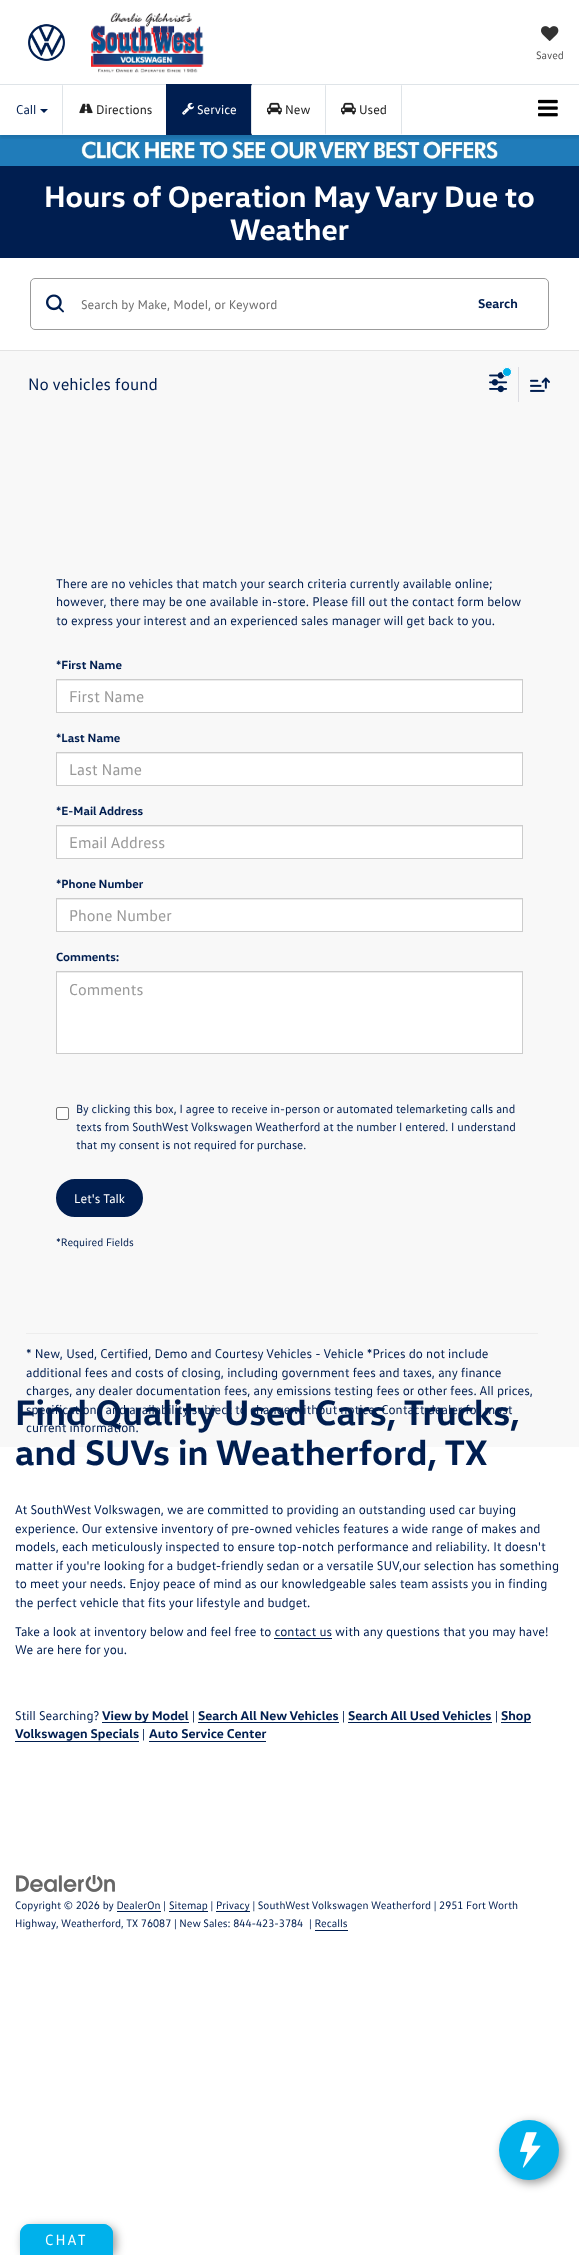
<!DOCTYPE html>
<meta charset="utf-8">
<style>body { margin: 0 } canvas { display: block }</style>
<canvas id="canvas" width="579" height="2255"></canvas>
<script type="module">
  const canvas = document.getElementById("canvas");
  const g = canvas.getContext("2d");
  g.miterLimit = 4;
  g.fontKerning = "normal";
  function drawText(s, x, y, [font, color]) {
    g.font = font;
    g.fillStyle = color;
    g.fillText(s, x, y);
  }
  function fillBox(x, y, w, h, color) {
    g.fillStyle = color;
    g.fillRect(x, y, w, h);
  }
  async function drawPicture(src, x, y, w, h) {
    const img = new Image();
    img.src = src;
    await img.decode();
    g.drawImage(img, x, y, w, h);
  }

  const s1 = ["11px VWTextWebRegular", "#555555"];
  const s2 = ["13px VWTextWebRegular", "#001E50"];
  const s3 = ["13px VWTextWebRegular", "#222222"];
  const s4 = ["13px VWTextWebRegular", "#FFFFFF"];
  const s5 = ["bold 30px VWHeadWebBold", "#FFFFFF"];
  const s6 = ["13px VWTextWebRegular", "#707070"];
  const s7 = ["bold 13px VWHeadWebBold", "#001E50"];
  const s8 = ["17px VWTextWebRegular", "#001E50"];
  const s9 = ["bold 12px VWHeadWebBold", "#001E50"];
  const s10 = ["16px VWTextWebRegular", "#999999"];
  const s11 = ["12px VWTextWebRegular", "#001E50"];
  const s12 = ["11.05px VWTextWebRegular", "#001E50"];
  const s13 = ["bold 36px VWHeadWebBold", "#001E50"];
  const s14 = ["15px VWTextWebRegular", "#FFFFFF"];

  fillBox(0, 0, 579, 2255, "#FFFFFF");
  await drawPicture("pic1.png", 28, 24, 37, 37);
  await drawPicture("pic2.png", 91, 12, 113, 61);
  await drawPicture("pic3.png", 541, 26, 18, 15);
  drawText("Saved", 536, 59, s1);
  fillBox(0, 84, 579, 1, "#DFE4E8");
  await drawPicture("pic8.png", 0, 135, 579, 31);
  g.save();
  g.beginPath();
  g.rect(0, 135, 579, 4);
  g.clip();
  g.fillStyle = "rgba(0, 0, 0, 0.1)";
  g.filter = "blur(1.5px)";
  g.beginPath();
  g.rect(0, 88, 579, 50);
  g.fill();
  g.filter = "none";
  g.restore();
  g.beginPath();
  g.moveTo(63, 84);
  g.lineTo(63, 135);
  g.lineTo(62, 133);
  g.lineTo(62, 86);
  g.closePath();
  g.fill();
  drawText("Call", 16, 114, s2);
  g.beginPath();
  g.moveTo(40, 109);
  g.lineTo(48, 109);
  g.lineTo(44, 113);
  g.closePath();
  g.fill();
  await drawPicture("pic4.png", 79, 103, 14, 11);
  drawText("Directions", 96, 114, s3);
  fillBox(166, 84, 86, 51, "#001E50");
  g.fillStyle = "#DFE4E8";
  g.beginPath();
  g.moveTo(252, 84);
  g.lineTo(252, 135);
  g.lineTo(251, 133);
  g.lineTo(251, 86);
  g.closePath();
  g.fill();
  await drawPicture("pic5.png", 182, 102, 12, 13);
  drawText("Service", 197, 114, s4);
  g.fillStyle = "#DFE4E8";
  g.beginPath();
  g.moveTo(326, 84);
  g.lineTo(326, 135);
  g.lineTo(325, 133);
  g.lineTo(325, 86);
  g.closePath();
  g.fill();
  await drawPicture("pic6.png", 267, 102, 15, 13);
  drawText("New", 285, 114, s3);
  g.fillStyle = "#DFE4E8";
  g.beginPath();
  g.moveTo(402, 84);
  g.lineTo(402, 135);
  g.lineTo(401, 133);
  g.lineTo(401, 86);
  g.closePath();
  g.fill();
  await drawPicture("pic6.png", 341, 102, 15, 13);
  drawText("Used", 359, 114, s3);
  await drawPicture("pic7.png", 538, 99, 20, 18);
  fillBox(0, 166, 579, 92, "#001E50");
  drawText("Hours of Operation May Vary Due to", 44, 207, s5);
  drawText("Weather", 230, 240, s5);
  fillBox(0, 351, 579, 1096, "#F8F8F8");
  fillBox(0, 350, 579, 1, "#E3E3E3");
  g.beginPath();
  g.roundRect(30.5, 278.5, 518, 51, 4.5);
  g.strokeStyle = "#9B9B9B";
  g.stroke();
  await drawPicture("pic9.png", 46, 294, 18, 19);
  drawText("Search by Make, Model, or Keyword", 81, 309, s6);
  drawText("Search", 478, 308, s7);
  drawText("No vehicles found", 28, 390, s8);
  await drawPicture("pic10.png", 489, 372, 19, 21);
  g.fillStyle = "#00B1EB";
  g.beginPath();
  g.arc(507, 372, 4.5, 0, Math.PI * 2);
  g.fill();
  g.strokeStyle = "#FFFFFF";
  g.stroke();
  fillBox(518, 367, 1, 35, "#DCDCE2");
  await drawPicture("pic11.png", 530, 377, 20, 15);
  drawText("There are no vehicles that match your search criteria currently available online;", 56, 588, s2);
  drawText("however, there may be one available in-store. Please fill out the contact form below", 56, 606, s2);
  drawText("to express your interest and an experienced sales manager will get back to you.", 56, 625, s2);
  drawText("*First Name", 56, 669, s9);
  fillBox(57, 681, 465, 31, "#FFFFFF");
  fillBox(57, 680, 465, 1, "#ECECEC");
  g.strokeStyle = "#CCCCCC";
  g.strokeRect(56.5, 679.5, 466, 33);
  drawText("First Name", 69, 702, s10);
  drawText("*Last Name", 56, 742, s9);
  fillBox(57, 754, 465, 31, "#FFFFFF");
  fillBox(57, 753, 465, 1, "#ECECEC");
  g.strokeRect(56.5, 752.5, 466, 33);
  drawText("Last Name", 69, 775, s10);
  drawText("*E-Mail Address", 56, 815, s9);
  fillBox(57, 827, 465, 31, "#FFFFFF");
  fillBox(57, 826, 465, 1, "#ECECEC");
  g.strokeRect(56.5, 825.5, 466, 33);
  drawText("Email Address", 69, 848, s10);
  drawText("*Phone Number", 56, 888, s9);
  fillBox(57, 900, 465, 31, "#FFFFFF");
  fillBox(57, 899, 465, 1, "#ECECEC");
  g.strokeRect(56.5, 898.5, 466, 33);
  drawText("Phone Number", 69, 921, s10);
  drawText("Comments:", 56, 961, s9);
  fillBox(57, 973, 465, 80, "#FFFFFF");
  fillBox(57, 972, 465, 1, "#ECECEC");
  g.strokeRect(56.5, 971.5, 466, 82);
  drawText("Comments", 69, 995, s10);
  g.fillStyle = "#FFFFFF";
  g.beginPath();
  g.roundRect(56.5, 1107.5, 12, 12, 1.5);
  g.fill();
  g.strokeStyle = "#767676";
  g.stroke();
  drawText("By clicking this box, I agree to receive in-person or automated telemarketing calls and", 76, 1113, s11);
  drawText("texts from SouthWest Volkswagen Weatherford at the number I entered. I understand", 76, 1131, s11);
  drawText("that my consent is not required for purchase.", 76, 1149, s11);
  g.beginPath();
  g.roundRect(57, 1180, 85, 36, 18);
  g.fill();
  g.strokeStyle = "#001E50";
  g.lineWidth = 2;
  g.stroke();
  drawText("Let's Talk", 74, 1203, s4);
  drawText("*Required Fields", 56, 1246, s12);
  fillBox(26, 1333, 512, 1, "#EDEDED");
  drawText("* New, Used, Certified, Demo and Courtesy Vehicles - Vehicle *Prices do not include", 26, 1358, s2);
  drawText("additional fees and costs of closing, including government fees and taxes, any finance", 26, 1377, s2);
  drawText("charges, any dealer documentation fees, any emissions testing fees or other fees. All prices,", 26, 1395, s2);
  drawText("specifications and availability subject to change without notice. Contact dealer for most", 26, 1414, s2);
  drawText("current information.", 26, 1432, s2);
  drawText("Find Quality Used Cars, Trucks,", 15, 1425, s13);
  drawText("and SUVs in Weatherford, TX", 15, 1465, s13);
  drawText("At SouthWest Volkswagen, we are committed to providing an outstanding used car buying", 15, 1514, s2);
  drawText("experience. Our extensive inventory of pre-owned vehicles features a wide range of makes and", 15, 1533, s2);
  drawText("models, each meticulously inspected to ensure top-notch performance and reliability. It doesn't", 15, 1551, s2);
  drawText("matter if you're looking for a budget-friendly sedan or a versatile SUV,our selection has something", 15, 1570, s2);
  drawText("to meet your needs. Enjoy peace of mind as our knowledgeable sales team assists you in finding", 15, 1588, s2);
  drawText("the perfect vehicle that fits your lifestyle and budget.", 15, 1607, s2);
  drawText("Take a look at inventory below and feel free to contact us with any questions that you may have!", 15, 1636, s2);
  fillBox(274, 1638, 58, 1, "#001E50");
  drawText("We are here for you.", 15, 1654, s2);
  drawText("Still Searching?", 15, 1720, s2);
  fillBox(102, 1722, 87, 1, "#001E50");
  drawText("View by Model", 102, 1720, s7);
  drawText("|", 192, 1720, s2);
  drawText("Search All New Vehicles", 198, 1720, s7);
  fillBox(198, 1722, 141, 1, "#001E50");
  drawText("|", 342, 1720, s2);
  drawText("Search All Used Vehicles", 348, 1720, s7);
  fillBox(348, 1722, 144, 1, "#001E50");
  drawText("|", 495, 1720, s2);
  fillBox(501, 1722, 30, 1, "#001E50");
  drawText("Shop", 501, 1720, s7);
  drawText("Volkswagen Specials", 15, 1738, s7);
  fillBox(15, 1741, 124, 1, "#001E50");
  drawText("|", 142, 1738, s2);
  drawText("Auto Service Center", 149, 1738, s7);
  fillBox(149, 1741, 117, 1, "#001E50");
  await drawPicture("pic12.png", 16, 1875, 99, 17);
  drawText("Copyright © 2026 by DealerOn |", 15, 1909, s12);
  fillBox(117, 1911, 44, 1, "#001E50");
  fillBox(169, 1911, 39, 1, "#001E50");
  drawText("Sitemap |", 169, 1909, s12);
  fillBox(216, 1911, 34, 1, "#001E50");
  drawText("Privacy | SouthWest Volkswagen Weatherford | 2951 Fort Worth", 216, 1909, s12);
  drawText("Highway, Weatherford, TX 76087 | New Sales: 844-423-3784", 15, 1927, s12);
  drawText("| Recalls", 309, 1927, s12);
  fillBox(315, 1930, 33, 1, "#001E50");
  g.fillStyle = "rgba(0, 0, 0, 0.4)";
  g.filter = "blur(5px)";
  g.beginPath();
  g.roundRect(502, 2123, 60, 60, 30);
  g.fill();
  g.filter = "none";
  g.fillStyle = "#00B1EB";
  g.beginPath();
  g.arc(529, 2150, 30, 0, Math.PI * 2);
  g.fill();
  await drawPicture("pic13.png", 520, 2132, 21, 36);
  g.fillStyle = "rgba(0, 0, 0, 0.4)";
  g.filter = "blur(5px)";
  g.beginPath();
  g.roundRect(23, 2227, 93, 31, 10);
  g.fill();
  g.filter = "none";
  g.fillStyle = "#00B1EB";
  g.beginPath();
  g.roundRect(20, 2224, 93, 31, [10, 10, 0, 0]);
  g.fill();
  g.beginPath();
  g.moveTo(30, 2224);
  g.bezierCurveTo(27, 2224, 24, 2225, 23, 2227);
  g.lineTo(25, 2229);
  g.bezierCurveTo(26, 2228, 28, 2227, 30, 2227);
  g.lineTo(103, 2227);
  g.bezierCurveTo(105, 2227, 107, 2228, 108, 2229);
  g.lineTo(110, 2227);
  g.bezierCurveTo(108, 2225, 106, 2224, 103, 2224);
  g.closePath();
  g.fill();
  g.beginPath();
  g.moveTo(113, 2255);
  g.lineTo(113, 2234);
  g.bezierCurveTo(113, 2231, 112, 2228.5, 110, 2227);
  g.lineTo(108, 2229);
  g.bezierCurveTo(109, 2230, 110, 2232, 110, 2234);
  g.lineTo(110, 2252);
  g.closePath();
  g.fill();
  g.beginPath();
  g.moveTo(20, 2255);
  g.lineTo(23, 2252);
  g.lineTo(23, 2234);
  g.bezierCurveTo(23, 2232, 24, 2230, 25, 2229);
  g.lineTo(23, 2227);
  g.bezierCurveTo(21, 2228.5, 20, 2231, 20, 2234);
  g.closePath();
  g.fill();
  g.letterSpacing = "2px";
  drawText("CHAT", 45, 2245, s14);
</script>
